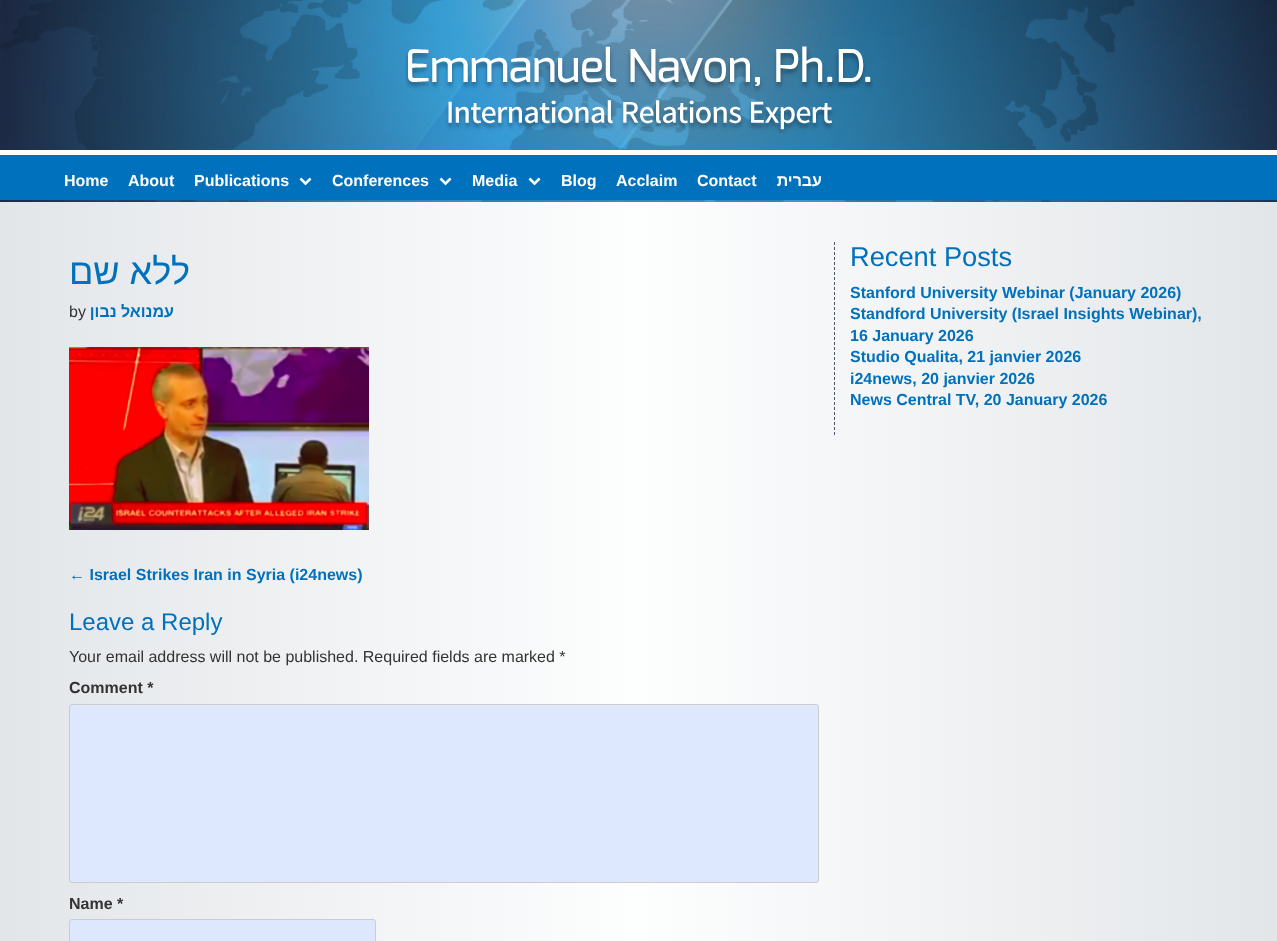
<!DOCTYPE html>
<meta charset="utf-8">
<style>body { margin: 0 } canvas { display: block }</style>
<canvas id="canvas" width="1277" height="941"></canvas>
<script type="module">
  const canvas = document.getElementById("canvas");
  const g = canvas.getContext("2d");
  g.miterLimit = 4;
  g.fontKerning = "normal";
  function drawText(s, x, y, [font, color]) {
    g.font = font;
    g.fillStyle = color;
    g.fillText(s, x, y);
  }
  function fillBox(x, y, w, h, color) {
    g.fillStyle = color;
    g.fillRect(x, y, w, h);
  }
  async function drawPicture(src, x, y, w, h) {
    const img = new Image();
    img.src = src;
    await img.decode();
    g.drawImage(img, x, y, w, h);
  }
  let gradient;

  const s1 = ["bold 16px Liberation Sans", "#FFFFFF"];
  const s2 = ["36px Liberation Sans", "#0071BC"];
  const s3 = ["16px Liberation Sans", "#333333"];
  const s4 = ["bold 16px Liberation Sans", "#0071BC"];
  const s5 = ["24px Liberation Sans", "#0071BC"];
  const s6 = ["bold 16px Liberation Sans", "#333333"];
  const s7 = ["27.25px Liberation Sans", "#0071BC"];

  fillBox(0, 0, 1277, 941, "#FFFFFF");
  gradient = g.createLinearGradient(0, 654, 1277, 654);
  gradient.addColorStop(0, "#E3E6E9");
  gradient.addColorStop(0.5, "#FDFEFE");
  gradient.addColorStop(1, "#E3E6E9");
  g.fillStyle = gradient;
  g.fillRect(0, 202, 1277, 739);
  await drawPicture("pic1.png", 0, 0, 1277, 202);
  await drawPicture("pic2.png", 405, 46, 469, 87);
  fillBox(0, 155, 1277, 45, "#0071BC");
  fillBox(0, 150, 1277, 5, "#FFFFFF");
  drawText("Home", 64, 186, s1);
  drawText("About", 128, 186, s1);
  drawText("Publications", 194, 186, s1);
  await drawPicture("pic3.png", 299, 177, 13, 9);
  drawText("Conferences", 332, 186, s1);
  await drawPicture("pic3.png", 439, 177, 13, 9);
  drawText("Media", 472, 186, s1);
  await drawPicture("pic3.png", 528, 177, 13, 9);
  drawText("Blog", 561, 186, s1);
  drawText("Acclaim", 616, 186, s1);
  drawText("Contact", 697, 186, s1);
  g.direction = "rtl";
  drawText("עברית", 822, 186, s1);
  drawText("ללא שם", 190, 284, s2);
  g.direction = "ltr";
  drawText("by", 69, 317, s3);
  g.direction = "rtl";
  drawText("עמנואל נבון", 174, 317, s4);
  await drawPicture("pic4.png", 69, 347, 300, 183);
  g.direction = "ltr";
  drawText("← Israel Strikes Iran in Syria (i24news)", 69, 580, s4);
  drawText("Leave a Reply", 69, 630, s5);
  drawText("Your email address will not be published. Required fields are marked *", 69, 662, s3);
  drawText("Comment *", 69, 693, s6);
  g.fillStyle = "#DDE8FE";
  g.beginPath();
  g.roundRect(69.5, 704.5, 749, 178, 2.5);
  g.fill();
  g.strokeStyle = "#CCCCCC";
  g.stroke();
  drawText("Name *", 69, 909, s6);
  g.fillStyle = "#DDE8FE";
  g.beginPath();
  g.roundRect(69.5, 919.5, 306, 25, 2.5);
  g.fill();
  g.stroke();
  g.beginPath();
  g.moveTo(834.5, 242);
  g.lineTo(834.5, 435);
  g.strokeStyle = "#4B566C";
  g.setLineDash([3, 2]);
  g.stroke();
  drawText("Recent Posts", 850, 266, s7);
  drawText("Stanford University Webinar (January 2026)", 850, 298, s4);
  drawText("Standford University (Israel Insights Webinar),", 850, 319, s4);
  drawText("16 January 2026", 850, 341, s4);
  drawText("Studio Qualita, 21 janvier 2026", 850, 362, s4);
  drawText("i24news, 20 janvier 2026", 850, 384, s4);
  drawText("News Central TV, 20 January 2026", 850, 405, s4);
</script>
